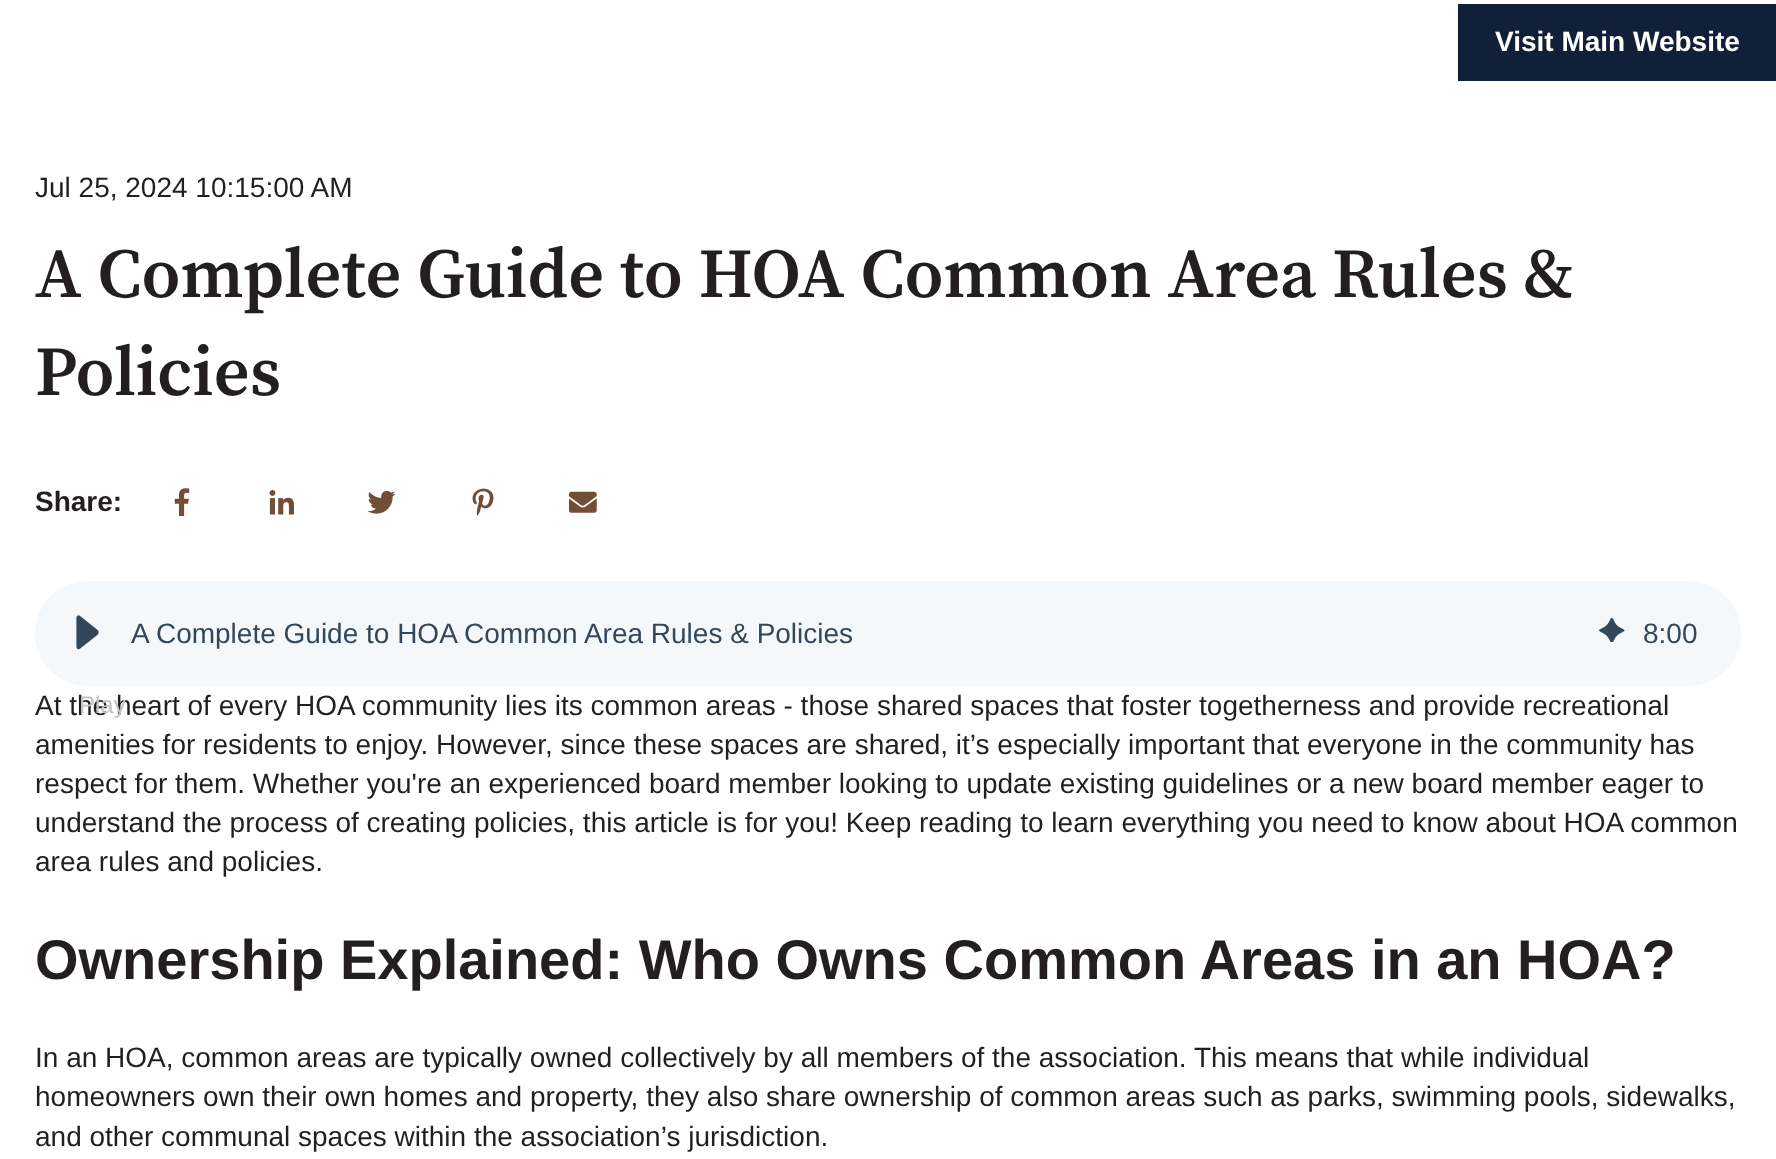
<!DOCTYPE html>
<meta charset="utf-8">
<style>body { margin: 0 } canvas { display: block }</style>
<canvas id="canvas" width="1776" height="1159"></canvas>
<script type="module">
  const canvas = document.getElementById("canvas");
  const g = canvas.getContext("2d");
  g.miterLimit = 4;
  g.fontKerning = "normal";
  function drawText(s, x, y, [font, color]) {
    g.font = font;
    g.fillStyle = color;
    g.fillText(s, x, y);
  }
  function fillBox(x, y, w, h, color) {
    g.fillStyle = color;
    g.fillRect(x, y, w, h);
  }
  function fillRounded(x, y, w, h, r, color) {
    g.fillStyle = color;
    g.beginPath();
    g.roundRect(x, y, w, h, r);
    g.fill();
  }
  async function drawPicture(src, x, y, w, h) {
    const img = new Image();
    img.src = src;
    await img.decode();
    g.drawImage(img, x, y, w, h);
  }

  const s1 = ["bold 28px Liberation Sans", "#FFFFFF"];
  const s2 = ["28px Liberation Sans", "#231F20"];
  const s3 = ["600 70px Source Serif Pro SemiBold", "#231F20"];
  const s4 = ["bold 28px Liberation Sans", "#231F20"];
  const s5 = ["28px Liberation Sans", "#33475B"];
  const s6 = ["24px Liberation Sans", "#C4C3C4"];
  const s7 = ["bold 56px Liberation Sans", "#231F20"];

  fillBox(0, 0, 1776, 1159, "#FFFFFF");
  fillBox(1458, 4, 318, 77, "#121F38");
  drawText("Visit Main Website", 1495, 51, s1);
  drawText("Jul 25, 2024 10:15:00 AM", 35, 197, s2);
  drawText("A Complete Guide to HOA Common Area Rules &", 35, 297, s3);
  drawText("Policies", 35, 395, s3);
  drawText("Share:", 35, 511, s4);
  await drawPicture("pic1.png", 174, 488, 16, 28);
  await drawPicture("pic2.png", 269, 490, 25, 25);
  await drawPicture("pic3.png", 368, 490, 28, 24);
  await drawPicture("pic4.png", 472, 488, 22, 28);
  await drawPicture("pic5.png", 569, 491, 28, 22);
  fillRounded(35, 581, 1706, 105, 52.5, "#F5F8FA");
  drawText("A Complete Guide to HOA Common Area Rules & Policies", 131, 643, s5);
  await drawPicture("pic6.png", 1599, 617, 26, 25);
  drawText("8:00", 1643, 643, s5);
  await drawPicture("pic7.png", 76, 615, 23, 35);
  drawText("At the heart of every HOA community lies its common areas - those shared spaces that foster togetherness and provide recreational", 35, 715, s2);
  drawText("Play", 79, 713, s6);
  drawText("amenities for residents to enjoy. However, since these spaces are shared, it’s especially important that everyone in the community has", 35, 754, s2);
  drawText("respect for them. Whether you're an experienced board member looking to update existing guidelines or a new board member eager to", 35, 793, s2);
  drawText("understand the process of creating policies, this article is for you! Keep reading to learn everything you need to know about HOA common", 35, 832, s2);
  drawText("area rules and policies.", 35, 871, s2);
  drawText("Ownership Explained: Who Owns Common Areas in an HOA?", 35, 979, s7);
  drawText("In an HOA, common areas are typically owned collectively by all members of the association. This means that while individual", 35, 1067, s2);
  drawText("homeowners own their own homes and property, they also share ownership of common areas such as parks, swimming pools, sidewalks,", 35, 1106, s2);
  drawText("and other communal spaces within the association’s jurisdiction.", 35, 1146, s2);
</script>
